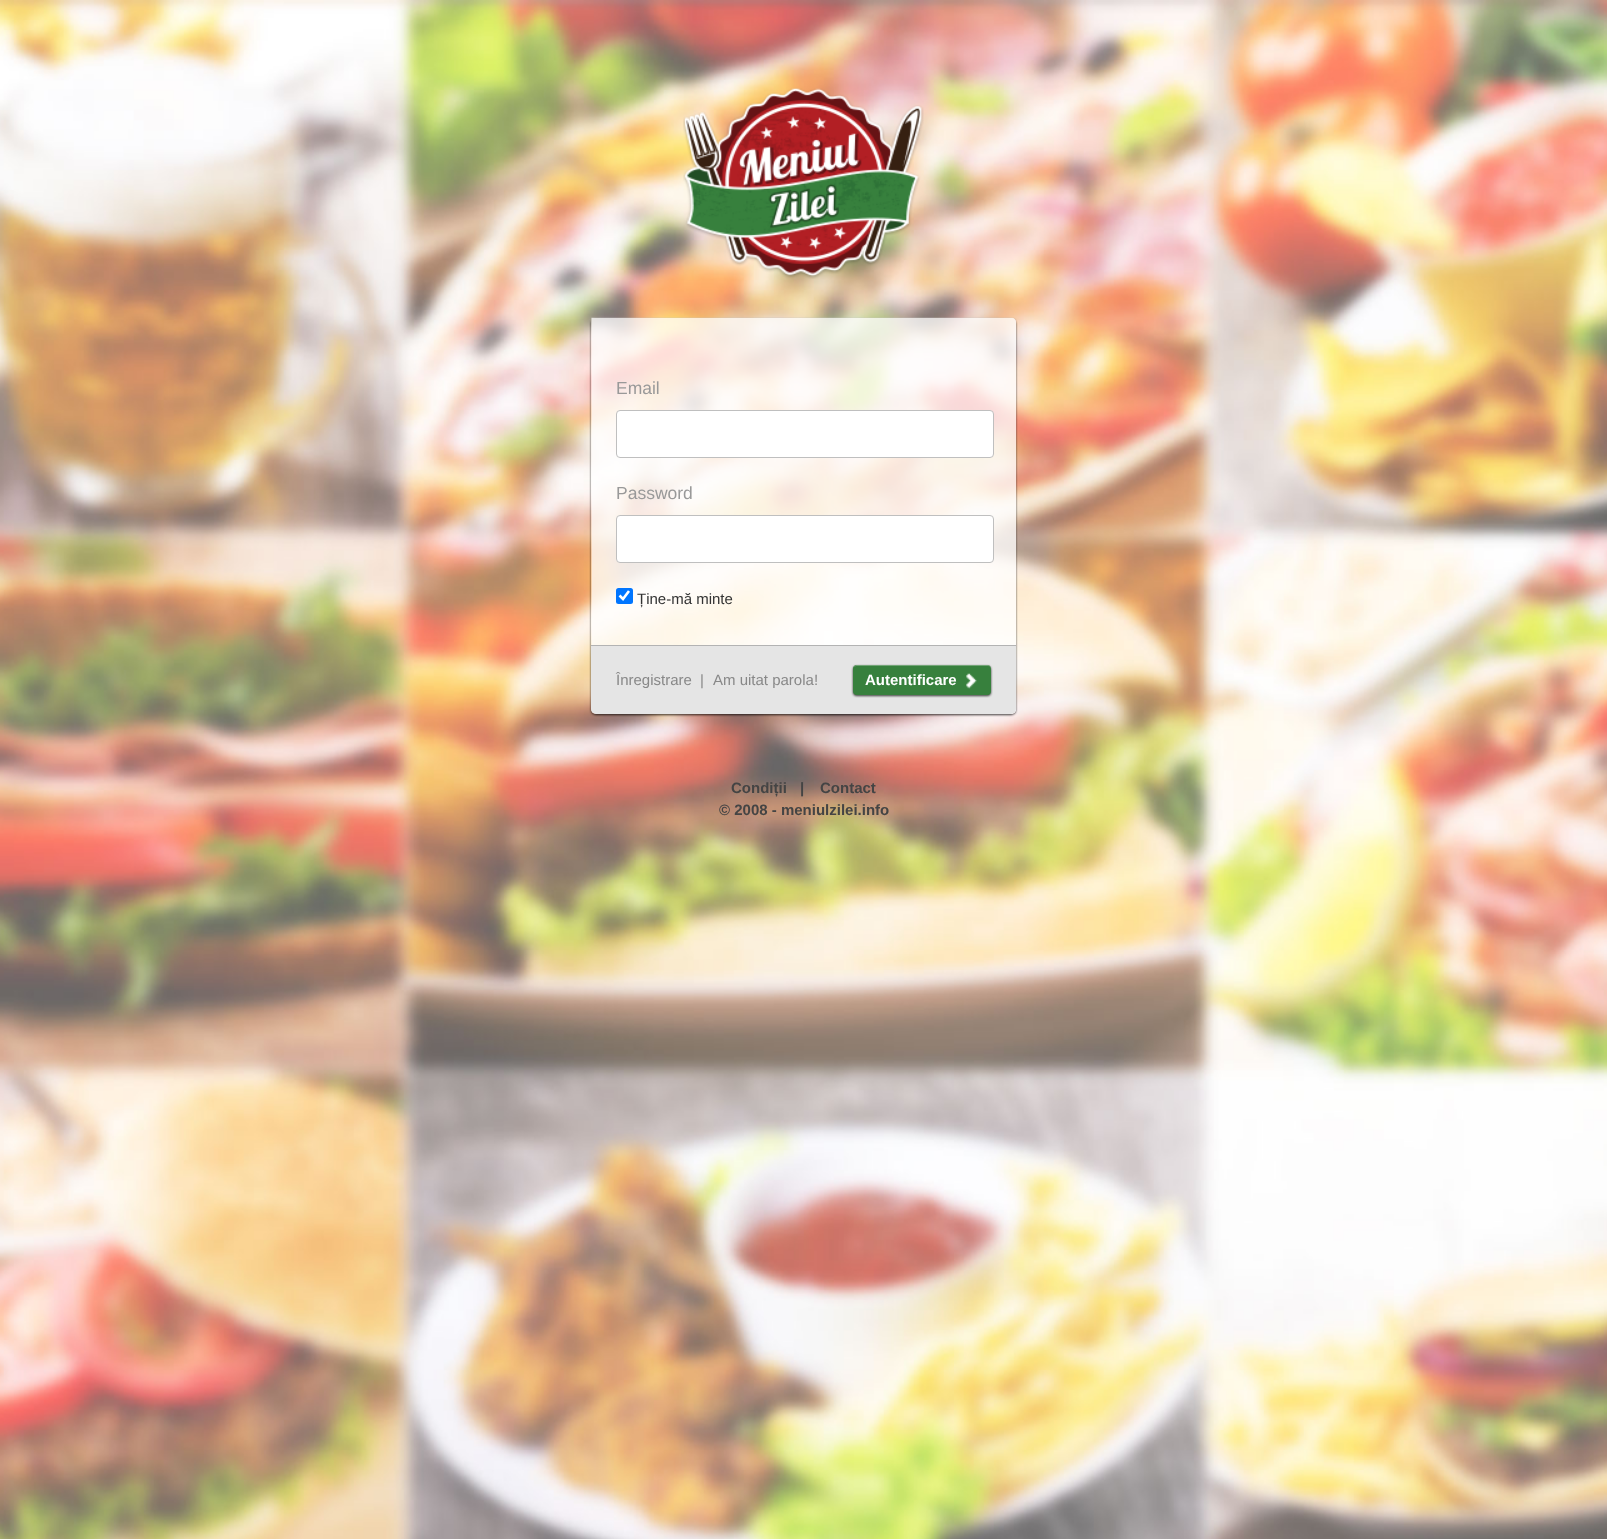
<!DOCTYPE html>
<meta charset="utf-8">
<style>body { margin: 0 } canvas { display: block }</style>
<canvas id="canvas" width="1607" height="1539"></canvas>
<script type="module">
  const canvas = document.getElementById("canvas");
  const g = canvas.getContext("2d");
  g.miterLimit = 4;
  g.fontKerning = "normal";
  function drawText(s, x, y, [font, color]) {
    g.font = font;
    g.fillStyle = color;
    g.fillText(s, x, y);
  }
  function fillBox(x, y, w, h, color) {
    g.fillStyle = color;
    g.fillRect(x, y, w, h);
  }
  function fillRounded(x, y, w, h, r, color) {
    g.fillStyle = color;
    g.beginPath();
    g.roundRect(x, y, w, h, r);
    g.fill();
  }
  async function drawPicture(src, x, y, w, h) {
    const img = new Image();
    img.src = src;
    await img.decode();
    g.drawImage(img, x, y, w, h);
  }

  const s1 = ["17.5px Liberation Sans", "#999999"];
  const s2 = ["15px Liberation Sans", "#333333"];
  const s3 = ["15px Liberation Sans", "#888888"];
  const s4 = ["bold 15px Liberation Sans", "#FFFFFF"];
  const s5 = ["bold 15px Liberation Sans", "#444444"];

  fillBox(0, 0, 1607, 1539, "#FFFFFF");
  await drawPicture("pic1.png", 0, 0, 1607, 1539);
  await drawPicture("pic2.png", 683, 88, 241, 191);
  g.save();
  g.beginPath();
  g.moveTo(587, 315);
  g.lineTo(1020, 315);
  g.lineTo(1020, 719);
  g.lineTo(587, 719);
  g.closePath();
  g.moveTo(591, 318);
  g.lineTo(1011, 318);
  g.bezierCurveTo(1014, 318, 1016, 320, 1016, 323);
  g.lineTo(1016, 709);
  g.bezierCurveTo(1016, 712, 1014, 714, 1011, 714);
  g.lineTo(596, 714);
  g.bezierCurveTo(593, 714, 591, 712, 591, 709);
  g.closePath();
  g.clip("evenodd");
  g.fillStyle = "rgba(0, 0, 0, 0.75)";
  g.filter = "blur(1px)";
  g.beginPath();
  g.roundRect(591, 319, 425, 396, 5);
  g.fill();
  g.filter = "none";
  g.restore();
  await drawPicture("pic3.png", 591, 317, 426, 397);
  drawText("Email", 616, 394, s1);
  g.fillStyle = "#FFFFFF";
  g.beginPath();
  g.roundRect(616.5, 410.5, 377, 47, 3.5);
  g.fill();
  g.strokeStyle = "#BFBFBF";
  g.stroke();
  drawText("Password", 616, 499, s1);
  g.fillStyle = "#FFFFFF";
  g.beginPath();
  g.roundRect(616.5, 515.5, 377, 47, 3.5);
  g.fill();
  g.stroke();
  fillRounded(616, 588, 17, 16, 2.5, "#0075FF");
  g.beginPath();
  g.moveTo(619.5, 595.5);
  g.lineTo(623, 599);
  g.lineTo(629, 591);
  g.strokeStyle = "#FFFFFF";
  g.lineWidth = 2.6;
  g.stroke();
  drawText("Ține-mă minte", 637, 604, s2);
  g.fillStyle = "#E5E5E5";
  g.beginPath();
  g.roundRect(591, 645, 425, 69, [0, 0, 5, 5]);
  g.fill();
  fillBox(591, 645, 425, 1, "#B3B3B3");
  drawText("Înregistrare", 616, 685, s3);
  drawText("|", 700, 685, s3);
  drawText("Am uitat parola!", 713, 685, s3);
  g.fillStyle = "rgba(0, 0, 0, 0.75)";
  g.filter = "blur(1px)";
  g.beginPath();
  g.roundRect(853, 666, 138, 30, 4);
  g.fill();
  g.filter = "none";
  fillRounded(853, 665, 138, 30, 4, "#37803D");
  g.fillStyle = "rgba(255, 255, 255, 0.3)";
  g.beginPath();
  g.moveTo(856, 666);
  g.lineTo(988, 666);
  g.bezierCurveTo(990, 666, 991, 668, 991, 670);
  g.lineTo(991, 669);
  g.bezierCurveTo(991, 667, 989, 665, 987, 665);
  g.lineTo(857, 665);
  g.bezierCurveTo(856, 665, 854, 666, 854, 667);
  g.closePath();
  g.fill();
  drawText("Autentificare", 865, 685, s4);
  await drawPicture("pic4.png", 966, 673, 11, 16);
  drawText("Condiții", 731, 793, s5);
  drawText("|", 800, 793, s5);
  drawText("Contact", 820, 793, s5);
  drawText("© 2008 - meniulzilei.info", 719, 815, s5);
</script>
